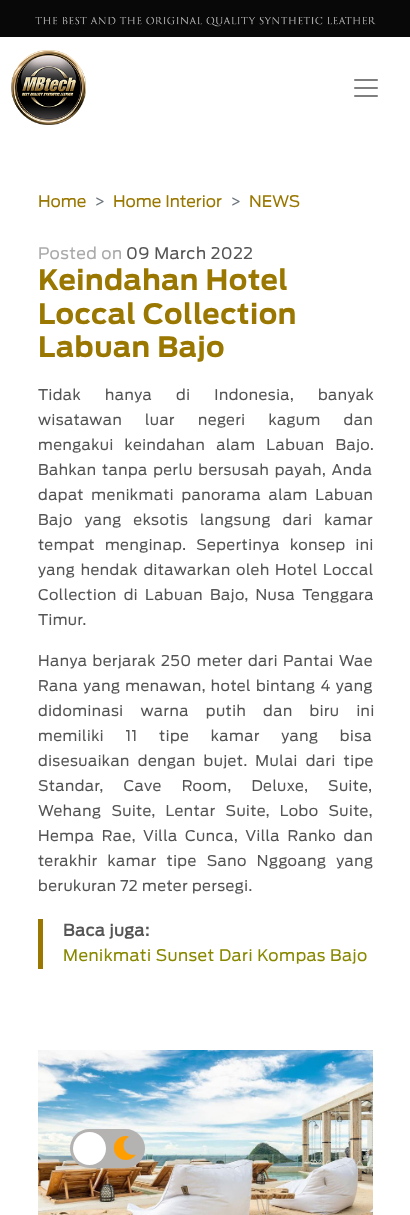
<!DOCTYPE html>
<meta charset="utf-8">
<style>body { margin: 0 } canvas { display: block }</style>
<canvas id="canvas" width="410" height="1215"></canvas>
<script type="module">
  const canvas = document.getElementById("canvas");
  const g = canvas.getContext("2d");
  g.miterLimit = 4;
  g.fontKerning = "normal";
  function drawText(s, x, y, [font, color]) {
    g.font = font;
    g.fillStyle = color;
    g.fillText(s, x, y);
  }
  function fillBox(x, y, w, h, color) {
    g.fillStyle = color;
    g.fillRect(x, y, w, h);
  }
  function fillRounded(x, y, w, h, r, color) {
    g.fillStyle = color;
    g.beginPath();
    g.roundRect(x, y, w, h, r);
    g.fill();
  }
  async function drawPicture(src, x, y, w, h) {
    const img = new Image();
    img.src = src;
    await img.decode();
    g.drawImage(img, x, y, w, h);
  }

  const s1 = ["16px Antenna", "#997700"];
  const s2 = ["16px Antenna", "#6C757D"];
  const s3 = ["16px Antenna", "#AAAAAA"];
  const s4 = ["16px Antenna", "#555555"];
  const s5 = ["bold 28px Antenna", "#997700"];
  const s6 = ["14.7px Antenna", "#555555"];
  const s7 = ["bold 16px 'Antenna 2'", "#555555"];
  const s8 = ["16px Antenna", "#888800"];

  fillBox(0, 0, 410, 1215, "#080808");
  await drawPicture("pic1.png", 35, 17, 341, 10);
  fillBox(0, 37, 410, 1178, "#FFFFFF");
  await drawPicture("pic2.png", 11, 50, 75, 75);
  await drawPicture("pic3.png", 354, 79, 24, 18);
  drawText("Home", 38, 207, s1);
  drawText(">", 94, 207, s2);
  drawText("Home Interior", 113, 207, s1);
  drawText(">", 230, 207, s2);
  drawText("NEWS", 249, 207, s1);
  g.letterSpacing = "0.5px";
  drawText("Posted on", 38, 259, s3);
  drawText("09 March 2022", 126, 259, s4);
  drawText("Keindahan Hotel", 38, 290, s5);
  drawText("Loccal Collection", 38, 324, s5);
  drawText("Labuan Bajo", 38, 357, s5);
  g.wordSpacing = "20px";
  drawText("Tidak hanya di Indonesia, banyak", 38, 400, s6);
  g.wordSpacing = "19px";
  drawText("wisatawan luar negeri kagum dan", 38, 425, s6);
  g.wordSpacing = "7px";
  drawText("mengakui keindahan alam Labuan Bajo.", 38, 450, s6);
  g.wordSpacing = "1.5px";
  drawText("Bahkan tanpa perlu bersusah payah, Anda", 38, 475, s6);
  g.wordSpacing = "3.5px";
  drawText("dapat menikmati panorama alam Labuan", 38, 500, s6);
  g.wordSpacing = "7.75px";
  drawText("Bajo yang eksotis langsung dari kamar", 38, 525, s6);
  g.wordSpacing = "6px";
  drawText("tempat menginap. Sepertinya konsep ini", 38, 550, s6);
  g.wordSpacing = "1.5px";
  drawText("yang hendak ditawarkan oleh Hotel Loccal", 38, 575, s6);
  g.wordSpacing = "3px";
  drawText("Collection di Labuan Bajo, Nusa Tenggara", 38, 600, s6);
  g.wordSpacing = "0px";
  drawText("Timur.", 38, 625, s6);
  g.wordSpacing = "1.25px";
  drawText("Hanya berjarak 250 meter dari Pantai Wae", 38, 666, s6);
  g.wordSpacing = "1px";
  drawText("Rana yang menawan, hotel bintang 4 yang", 38, 691, s6);
  g.wordSpacing = "13px";
  drawText("didominasi warna putih dan biru ini", 38, 716, s6);
  g.wordSpacing = "17.5px";
  drawText("memiliki 11 tipe kamar yang bisa", 38, 741, s6);
  g.wordSpacing = "4px";
  drawText("disesuaikan dengan bujet. Mulai dari tipe", 38, 766, s6);
  g.wordSpacing = "16px";
  drawText("Standar, Cave Room, Deluxe, Suite,", 38, 791, s6);
  g.wordSpacing = "6px";
  drawText("Wehang Suite, Lentar Suite, Lobo Suite,", 38, 816, s6);
  g.wordSpacing = "3.5px";
  drawText("Hempa Rae, Villa Cunca, Villa Ranko dan", 38, 841, s6);
  g.wordSpacing = "6px";
  drawText("terakhir kamar tipe Sano Nggoang yang", 38, 866, s6);
  g.wordSpacing = "0px";
  drawText("berukuran 72 meter persegi.", 38, 891, s6);
  fillBox(38, 919, 5, 50, "#997700");
  drawText("Baca juga:", 63, 936, s7);
  drawText("Menikmati Sunset Dari Kompas Bajo", 63, 961, s8);
  await drawPicture("pic4.png", 38, 1050, 335, 165);
  fillRounded(70, 1129, 75, 39, 19.5, "#B5B2B2");
  g.fillStyle = "#FFFFFF";
  g.beginPath();
  g.arc(89.5, 1148.5, 16.5, 0, Math.PI * 2);
  g.fill();
  await drawPicture("pic5.png", 113, 1136, 23, 24);
</script>
